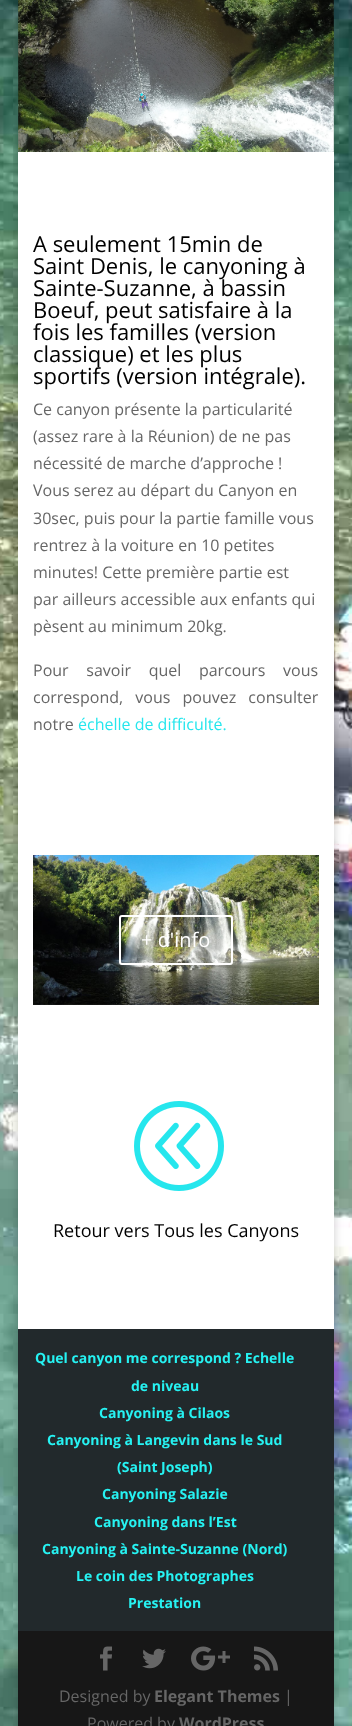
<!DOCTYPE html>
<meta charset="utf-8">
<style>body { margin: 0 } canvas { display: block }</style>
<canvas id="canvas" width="352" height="1726"></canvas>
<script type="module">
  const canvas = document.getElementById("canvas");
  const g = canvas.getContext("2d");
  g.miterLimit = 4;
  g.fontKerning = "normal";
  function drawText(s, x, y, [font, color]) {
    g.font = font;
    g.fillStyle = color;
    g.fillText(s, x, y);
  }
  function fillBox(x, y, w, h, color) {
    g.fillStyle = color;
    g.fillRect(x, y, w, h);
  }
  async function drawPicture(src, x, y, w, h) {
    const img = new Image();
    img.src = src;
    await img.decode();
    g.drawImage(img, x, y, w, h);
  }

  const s1 = ["22px Open Sans", "#000000"];
  const s2 = ["16px Open Sans", "#666666"];
  const s3 = ["16px Open Sans", "#25E6ED"];
  const s4 = ["20px Open Sans", "#FFFFFF"];
  const s5 = ["18px Open Sans", "#000000"];
  const s6 = ["bold 14px Open Sans", "#26F2F2"];
  const s7 = ["bold 16px Open Sans", "#666666"];

  fillBox(0, 0, 352, 1726, "#FFFFFF");
  await drawPicture("pic1.png", 0, 0, 352, 1726);
  g.fillStyle = "rgba(0, 0, 0, 0.2)";
  g.filter = "blur(5px)";
  g.beginPath();
  g.rect(18, -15, 316, 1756);
  g.fill();
  g.filter = "none";
  await drawPicture("pic2.png", 18, 0, 316, 152);
  fillBox(18, 152, 316, 1177, "#FFFFFF");
  drawText("A seulement 15min de", 33, 252, s1);
  drawText("Saint Denis, le canyoning à", 33, 274, s1);
  drawText("Sainte-Suzanne, à bassin", 33, 296, s1);
  drawText("Boeuf, peut satisfaire à la", 33, 318, s1);
  drawText("fois les familles (version", 33, 340, s1);
  drawText("classique) et les plus", 33, 362, s1);
  drawText("sportifs (version intégrale).", 33, 384, s1);
  drawText("Ce canyon présente la particularité", 33, 415, s2);
  drawText("(assez rare à la Réunion) de ne pas", 33, 442, s2);
  drawText("nécessité de marche d’approche !", 33, 469, s2);
  drawText("Vous serez au départ du Canyon en", 33, 496, s2);
  drawText("30sec, puis pour la partie famille vous", 33, 524, s2);
  drawText("rentrez à la voiture en 10 petites", 33, 551, s2);
  drawText("minutes! Cette première partie est", 33, 578, s2);
  drawText("par ailleurs accessible aux enfants qui", 33, 605, s2);
  drawText("pèsent au minimum 20kg.", 33, 632, s2);
  g.wordSpacing = "13.5px";
  drawText("Pour savoir quel parcours vous", 33, 676, s2);
  g.wordSpacing = "8px";
  drawText("correspond, vous pouvez consulter", 33, 703, s2);
  g.wordSpacing = "0px";
  drawText("notre", 33, 730, s2);
  drawText("échelle de difficulté.", 78, 730, s3);
  await drawPicture("pic3.png", 33, 855, 286, 150);
  g.beginPath();
  g.roundRect(120, 916, 112, 48, 2);
  g.strokeStyle = "#FFFFFF";
  g.lineWidth = 2;
  g.stroke();
  drawText("+ d'info", 141, 947, s4);
  await drawPicture("pic4.png", 134, 1101, 90, 90);
  drawText("Retour vers Tous les Canyons", 53, 1237, s5);
  fillBox(18, 1329, 316, 302, "#22292C");
  drawText("Quel canyon me correspond ? Echelle", 35, 1363, s6);
  drawText("de niveau", 131, 1391, s6);
  drawText("Canyoning à Cilaos", 99, 1418, s6);
  drawText("Canyoning à Langevin dans le Sud", 47, 1445, s6);
  drawText("(Saint Joseph)", 117, 1472, s6);
  drawText("Canyoning Salazie", 102, 1499, s6);
  drawText("Canyoning dans l’Est", 94, 1527, s6);
  drawText("Canyoning à Sainte-Suzanne (Nord)", 42, 1554, s6);
  drawText("Le coin des Photographes", 76, 1581, s6);
  drawText("Prestation", 128, 1608, s6);
  fillBox(18, 1631, 316, 95, "#171717");
  await drawPicture("pic5.png", 100, 1646, 12, 25);
  await drawPicture("pic6.png", 142, 1648, 24, 21);
  await drawPicture("pic7.png", 191, 1646, 39, 25);
  await drawPicture("pic8.png", 254, 1646, 24, 25);
  drawText("Designed by", 59, 1702, s2);
  drawText("Elegant Themes", 154, 1702, s7);
  drawText("|", 284, 1702, s2);
  drawText("Powered by", 87, 1729, s2);
  drawText("WordPress", 179, 1729, s7);
</script>
